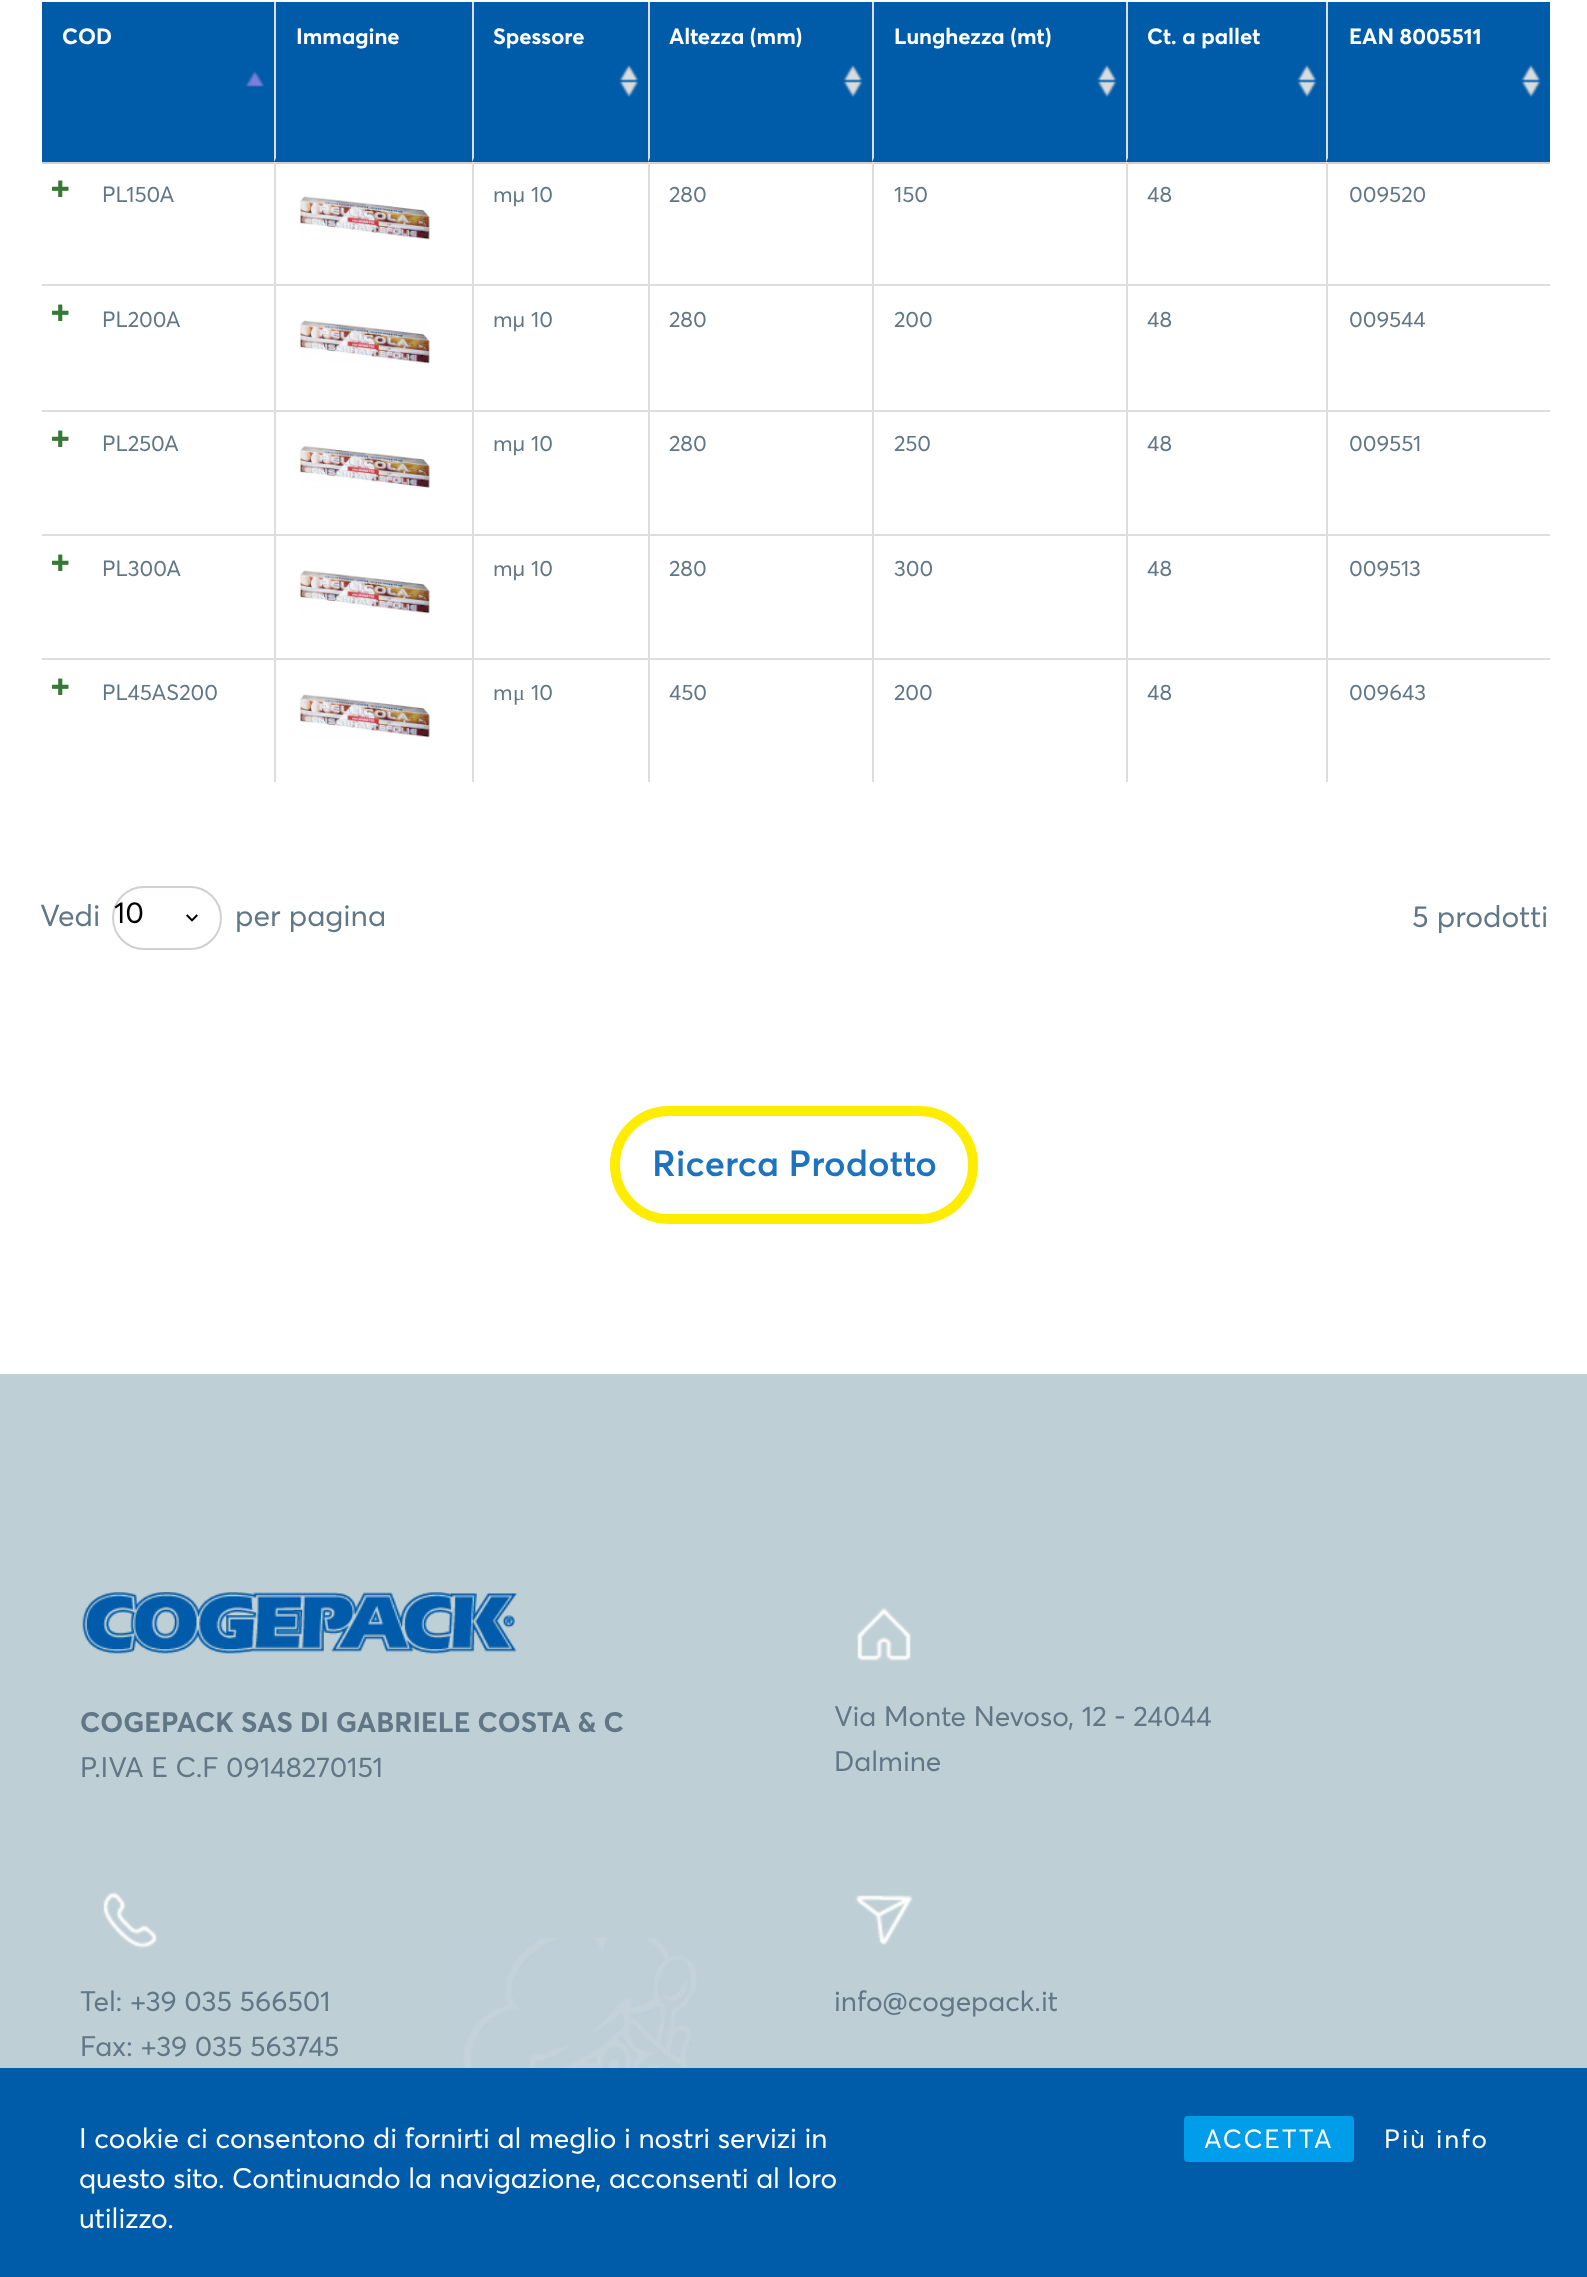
<!DOCTYPE html>
<meta charset="utf-8">
<style>body { margin: 0 } canvas { display: block }</style>
<canvas id="canvas" width="1587" height="2277"></canvas>
<script type="module">
  const canvas = document.getElementById("canvas");
  const g = canvas.getContext("2d");
  g.miterLimit = 4;
  g.fontKerning = "normal";
  function drawText(s, x, y, [font, color]) {
    g.font = font;
    g.fillStyle = color;
    g.fillText(s, x, y);
  }
  function fillBox(x, y, w, h, color) {
    g.fillStyle = color;
    g.fillRect(x, y, w, h);
  }
  function fillRounded(x, y, w, h, r, color) {
    g.fillStyle = color;
    g.beginPath();
    g.roundRect(x, y, w, h, r);
    g.fill();
  }
  async function drawPicture(src, x, y, w, h) {
    const img = new Image();
    img.src = src;
    await img.decode();
    g.drawImage(img, x, y, w, h);
  }

  const s1 = ["bold 22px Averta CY", "#FFFFFF"];
  const s2 = ["22px Averta CY", "#617786"];
  const s3 = ["22px Liberation Serif", "#617786"];
  const s4 = ["30px Averta CY", "#617786"];
  const s5 = ["30px Averta CY", "#000000"];
  const s6 = ["600 36px Averta CY", "#1E73BE"];
  const s7 = ["bold 28px Averta CY", "#617786"];
  const s8 = ["28px Averta CY", "#617786"];
  const s9 = ["28px Averta CY", "#FFFFFF"];
  const s10 = ["26px Averta CY", "#FFFFFF"];

  fillBox(0, 0, 1587, 2277, "#FFFFFF");
  fillBox(42, 2, 1508, 160, "#005CA8");
  await drawPicture("pic1.png", 245, 71, 20, 16);
  drawText("COD", 62, 44, s1);
  g.fillStyle = "#DDDDDD";
  g.beginPath();
  g.moveTo(274, 162);
  g.lineTo(274, 2);
  g.lineTo(276, 2);
  g.lineTo(276, 158);
  g.closePath();
  g.fill();
  drawText("Immagine", 296, 44, s1);
  await drawPicture("pic2.png", 619, 65, 20, 32);
  g.fillStyle = "#DDDDDD";
  g.beginPath();
  g.moveTo(472, 162);
  g.lineTo(472, 2);
  g.lineTo(474, 2);
  g.lineTo(474, 158);
  g.closePath();
  g.fill();
  drawText("Spessore", 493, 44, s1);
  await drawPicture("pic2.png", 843, 65, 20, 32);
  g.fillStyle = "#DDDDDD";
  g.beginPath();
  g.moveTo(648, 162);
  g.lineTo(648, 2);
  g.lineTo(650, 2);
  g.lineTo(650, 158);
  g.closePath();
  g.fill();
  drawText("Altezza (mm)", 669, 44, s1);
  await drawPicture("pic2.png", 1097, 65, 20, 32);
  g.fillStyle = "#DDDDDD";
  g.beginPath();
  g.moveTo(872, 162);
  g.lineTo(872, 2);
  g.lineTo(874, 2);
  g.lineTo(874, 158);
  g.closePath();
  g.fill();
  drawText("Lunghezza (mt)", 894, 44, s1);
  await drawPicture("pic2.png", 1297, 65, 20, 32);
  g.fillStyle = "#DDDDDD";
  g.beginPath();
  g.moveTo(1126, 162);
  g.lineTo(1126, 2);
  g.lineTo(1128, 2);
  g.lineTo(1128, 158);
  g.closePath();
  g.fill();
  drawText("Ct. a pallet", 1147, 44, s1);
  await drawPicture("pic2.png", 1521, 65, 20, 32);
  g.fillStyle = "#DDDDDD";
  g.beginPath();
  g.moveTo(1326, 162);
  g.lineTo(1326, 2);
  g.lineTo(1328, 2);
  g.lineTo(1328, 158);
  g.closePath();
  g.fill();
  drawText("EAN 8005511", 1349, 44, s1);
  fillBox(42, 162, 1508, 2, "#D3CED2");
  await drawPicture("pic3.png", 52, 180, 17, 17);
  drawText("PL150A", 102, 202, s2);
  fillBox(274, 162, 2, 122, "#DDDDDD");
  await drawPicture("pic4.png", 299, 196, 131, 44);
  fillBox(472, 162, 2, 122, "#DDDDDD");
  drawText("mµ 10", 493, 202, s2);
  fillBox(648, 162, 2, 122, "#DDDDDD");
  drawText("280", 669, 202, s2);
  fillBox(872, 162, 2, 122, "#DDDDDD");
  drawText("150", 894, 202, s2);
  fillBox(1126, 162, 2, 122, "#DDDDDD");
  drawText("48", 1147, 202, s2);
  fillBox(1326, 162, 2, 122, "#DDDDDD");
  drawText("009520", 1349, 202, s2);
  fillBox(42, 284, 1508, 2, "#DDDDDD");
  fillBox(274, 284, 2, 126, "#DDDDDD");
  await drawPicture("pic4.png", 299, 320, 131, 44);
  await drawPicture("pic3.png", 52, 304, 17, 17);
  drawText("PL200A", 102, 327, s2);
  fillBox(472, 284, 2, 126, "#DDDDDD");
  drawText("mµ 10", 493, 327, s2);
  fillBox(648, 284, 2, 126, "#DDDDDD");
  drawText("280", 669, 327, s2);
  fillBox(872, 284, 2, 126, "#DDDDDD");
  drawText("200", 894, 327, s2);
  fillBox(1126, 284, 2, 126, "#DDDDDD");
  drawText("48", 1147, 327, s2);
  fillBox(1326, 284, 2, 126, "#DDDDDD");
  drawText("009544", 1349, 327, s2);
  fillBox(42, 410, 1508, 2, "#DDDDDD");
  fillBox(274, 410, 2, 124, "#DDDDDD");
  await drawPicture("pic5.png", 299, 446, 131, 42);
  await drawPicture("pic3.png", 52, 430, 17, 17);
  drawText("PL250A", 102, 451, s2);
  fillBox(472, 410, 2, 124, "#DDDDDD");
  drawText("mµ 10", 493, 451, s2);
  fillBox(648, 410, 2, 124, "#DDDDDD");
  drawText("280", 669, 451, s2);
  fillBox(872, 410, 2, 124, "#DDDDDD");
  drawText("250", 894, 451, s2);
  fillBox(1126, 410, 2, 124, "#DDDDDD");
  drawText("48", 1147, 451, s2);
  fillBox(1326, 410, 2, 124, "#DDDDDD");
  drawText("009551", 1349, 451, s2);
  fillBox(42, 534, 1508, 2, "#DDDDDD");
  fillBox(274, 534, 2, 124, "#DDDDDD");
  await drawPicture("pic4.png", 299, 570, 131, 44);
  await drawPicture("pic3.png", 52, 554, 17, 17);
  drawText("PL300A", 102, 576, s2);
  fillBox(472, 534, 2, 124, "#DDDDDD");
  drawText("mµ 10", 493, 576, s2);
  fillBox(648, 534, 2, 124, "#DDDDDD");
  drawText("280", 669, 576, s2);
  fillBox(872, 534, 2, 124, "#DDDDDD");
  drawText("300", 894, 576, s2);
  fillBox(1126, 534, 2, 124, "#DDDDDD");
  drawText("48", 1147, 576, s2);
  fillBox(1326, 534, 2, 124, "#DDDDDD");
  drawText("009513", 1349, 576, s2);
  fillBox(42, 658, 1508, 2, "#DDDDDD");
  fillBox(274, 658, 2, 124, "#DDDDDD");
  await drawPicture("pic4.png", 299, 694, 131, 44);
  await drawPicture("pic3.png", 52, 678, 17, 17);
  drawText("PL45AS200", 102, 700, s2);
  fillBox(472, 658, 2, 124, "#DDDDDD");
  drawText("m", 493, 700, s2);
  drawText("μ", 513, 700, s3);
  drawText("10", 531, 700, s2);
  fillBox(648, 658, 2, 124, "#DDDDDD");
  drawText("450", 669, 700, s2);
  fillBox(872, 658, 2, 124, "#DDDDDD");
  drawText("200", 894, 700, s2);
  fillBox(1126, 658, 2, 124, "#DDDDDD");
  drawText("48", 1147, 700, s2);
  fillBox(1326, 658, 2, 124, "#DDDDDD");
  drawText("009643", 1349, 700, s2);
  drawText("Vedi", 40, 926, s4);
  g.beginPath();
  g.roundRect(113, 887, 108, 62, 31);
  g.strokeStyle = "#D3CED2";
  g.lineWidth = 2;
  g.stroke();
  drawText("10", 114, 923, s5);
  await drawPicture("pic6.png", 186, 914, 12, 8);
  drawText("per pagina", 235, 926, s4);
  drawText("5 prodotti", 1412, 927, s4);
  g.beginPath();
  g.roundRect(615, 1111, 358, 108, 54);
  g.strokeStyle = "#FFED00";
  g.lineWidth = 10;
  g.stroke();
  drawText("Ricerca Prodotto", 652, 1176, s6);
  fillBox(0, 1374, 1587, 694, "#BFCFD6");
  await drawPicture("pic7.png", 454, 1938, 265, 130);
  await drawPicture("pic8.png", 82, 1592, 436, 62);
  drawText("COGEPACK SAS DI GABRIELE COSTA & C", 80, 1732, s7);
  drawText("P.IVA E C.F 09148270151", 80, 1777, s8);
  await drawPicture("pic9.png", 857, 1607, 54, 54);
  drawText("Via Monte Nevoso, 12 - 24044", 834, 1726, s8);
  drawText("Dalmine", 834, 1771, s8);
  await drawPicture("pic10.png", 103, 1891, 54, 58);
  drawText("Tel: +39 035 566501", 80, 2011, s8);
  drawText("Fax: +39 035 563745", 80, 2056, s8);
  await drawPicture("pic11.png", 855, 1895, 58, 50);
  drawText("info@cogepack.it", 834, 2011, s8);
  fillBox(0, 2068, 1587, 209, "#005CA8");
  drawText("I cookie ci consentono di fornirti al meglio i nostri servizi in", 79, 2148, s9);
  drawText("questo sito. Continuando la navigazione, acconsenti al loro", 79, 2188, s9);
  drawText("utilizzo.", 79, 2228, s9);
  fillRounded(1184, 2116, 170, 46, 4, "#009DEA");
  g.letterSpacing = "2px";
  drawText("ACCETTA", 1204, 2148, s10);
  drawText("Più info", 1384, 2148, s10);
</script>
